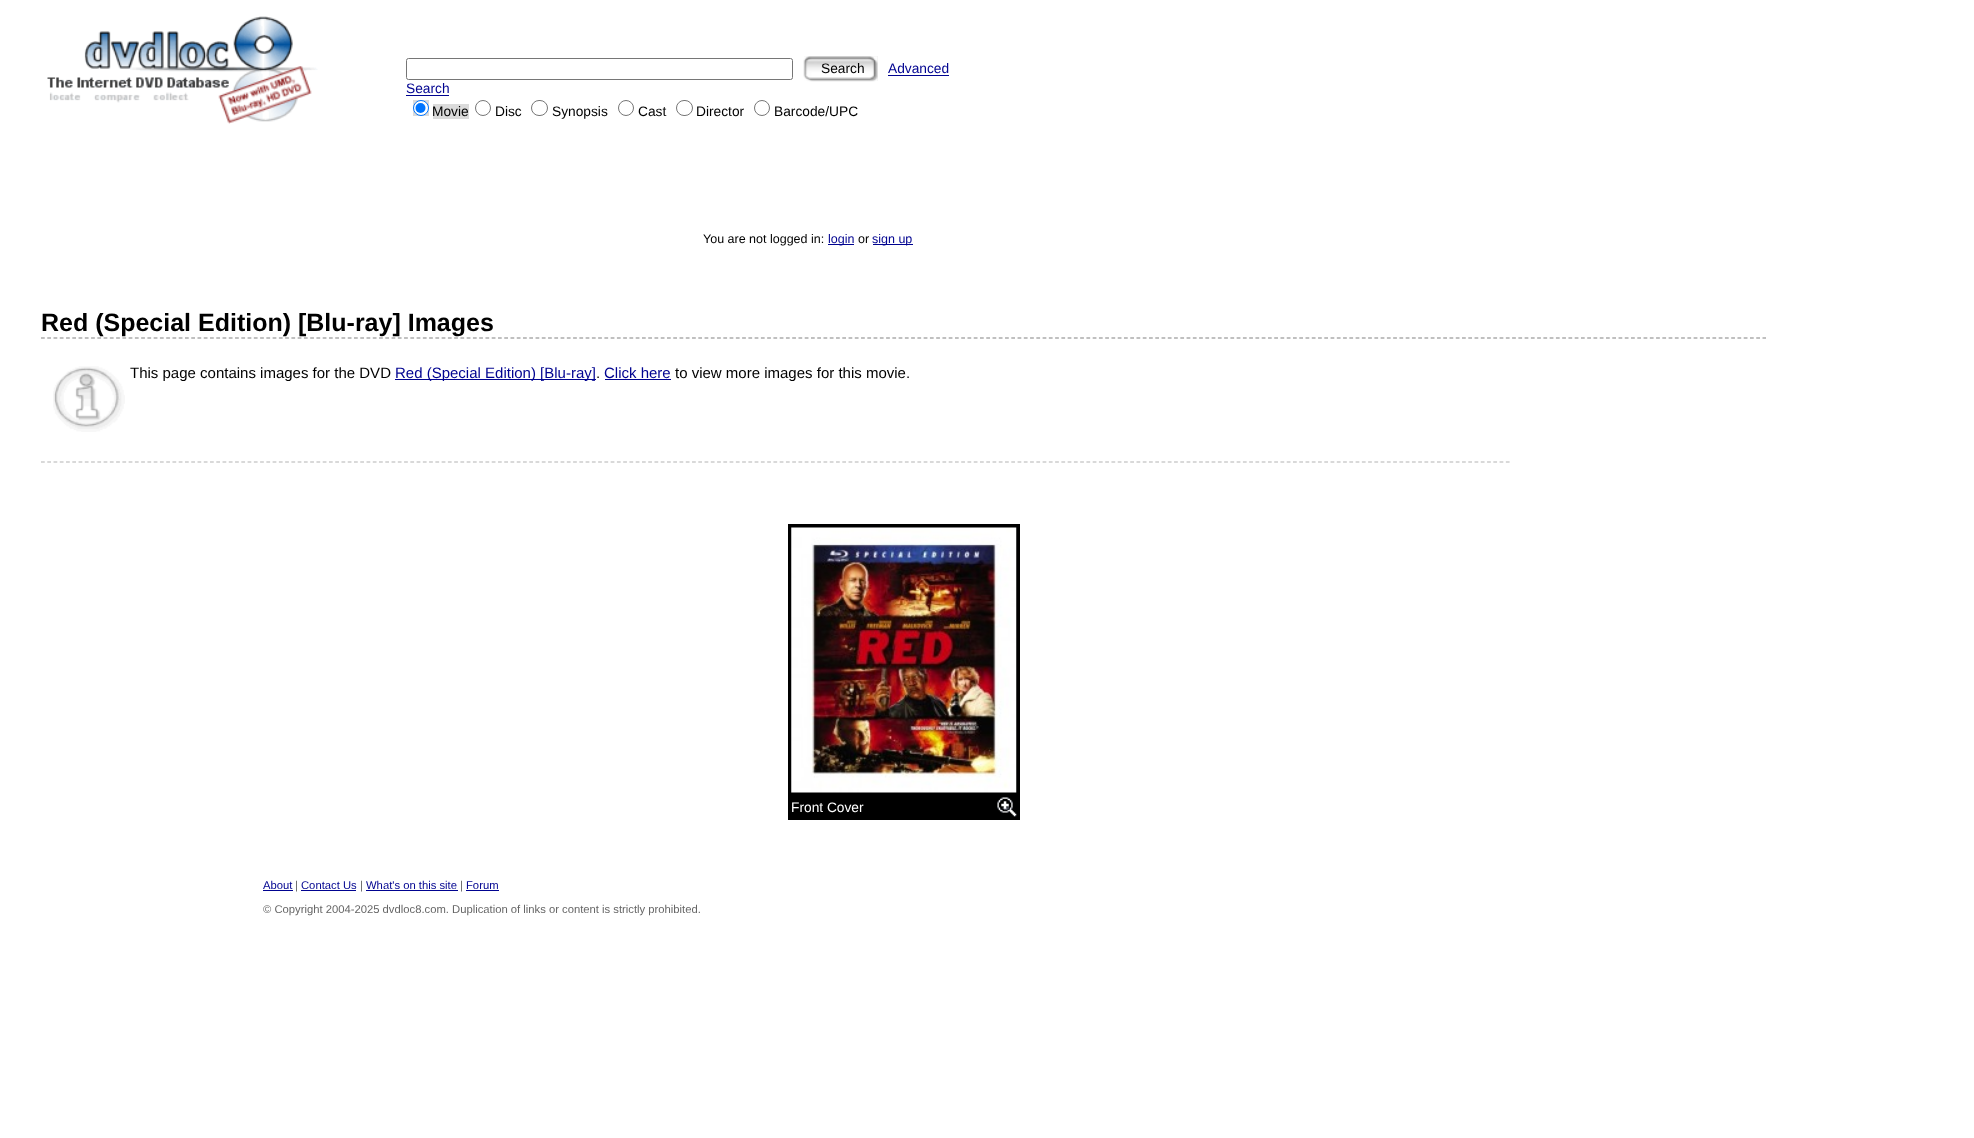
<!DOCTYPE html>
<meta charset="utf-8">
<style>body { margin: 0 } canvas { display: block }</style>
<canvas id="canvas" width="1974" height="1138"></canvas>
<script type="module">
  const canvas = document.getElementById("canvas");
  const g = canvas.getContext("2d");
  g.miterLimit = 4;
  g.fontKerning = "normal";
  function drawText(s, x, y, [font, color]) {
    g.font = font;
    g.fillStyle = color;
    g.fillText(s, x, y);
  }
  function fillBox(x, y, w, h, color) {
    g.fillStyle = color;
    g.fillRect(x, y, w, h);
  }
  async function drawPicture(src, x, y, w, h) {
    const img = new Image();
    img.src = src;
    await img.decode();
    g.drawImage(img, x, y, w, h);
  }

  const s1 = ["13.75px Liberation Sans", "#000000"];
  const s2 = ["13.75px Liberation Sans", "#000390"];
  const s3 = ["12.5px Liberation Sans", "#000000"];
  const s4 = ["12.5px Liberation Sans", "#000390"];
  const s5 = ["bold 25px Liberation Sans", "#000000"];
  const s6 = ["15px Liberation Sans", "#000000"];
  const s7 = ["15px Liberation Sans", "#000390"];
  const s8 = ["13.75px Liberation Sans", "#FFFFFF"];
  const s9 = ["11.25px Liberation Sans", "#000390"];
  const s10 = ["11.25px Liberation Sans", "#666666"];

  fillBox(0, 0, 1974, 1138, "#FFFFFF");
  await drawPicture("pic1.png", 47, 16, 271, 108);
  g.beginPath();
  g.roundRect(406.5, 58.5, 386, 21, 2);
  g.strokeStyle = "#767676";
  g.stroke();
  fillBox(804, 56, 74, 25, "#EFEFEF");
  await drawPicture("pic2.png", 803, 56, 75, 26);
  drawText("Search", 821, 73, s1);
  drawText("Advanced", 888, 73, s2);
  fillBox(888, 75, 61, 1, "#000390");
  drawText("Search", 406, 93, s2);
  fillBox(406, 95, 43, 1, "#000390");
  fillBox(413, 100, 16, 16, "#DBDBDB");
  fillBox(433, 104, 36, 15, "#DBDBDB");
  g.fillStyle = "#FFFFFF";
  g.beginPath();
  g.arc(421, 108, 7.5, 0, Math.PI * 2);
  g.fill();
  g.strokeStyle = "#0075FF";
  g.stroke();
  g.fillStyle = "#0075FF";
  g.beginPath();
  g.arc(420.5, 108, 5, 0, Math.PI * 2);
  g.fill();
  drawText("Movie", 432, 116, s1);
  g.beginPath();
  g.arc(483, 108, 7.5, 0, Math.PI * 2);
  g.strokeStyle = "#767676";
  g.stroke();
  drawText("Disc", 495, 116, s1);
  g.beginPath();
  g.roundRect(531.5, 100.5, 16, 15, 7.5);
  g.stroke();
  drawText("Synopsis", 552, 116, s1);
  g.beginPath();
  g.arc(626, 108, 7.5, 0, Math.PI * 2);
  g.stroke();
  drawText("Cast", 638, 116, s1);
  g.beginPath();
  g.roundRect(676.5, 100.5, 16, 15, 7.5);
  g.stroke();
  drawText("Director", 696, 116, s1);
  g.beginPath();
  g.arc(762, 108, 7.5, 0, Math.PI * 2);
  g.stroke();
  drawText("Barcode/UPC", 774, 116, s1);
  drawText("You are not logged in:", 703, 243, s3);
  fillBox(828, 244, 26, 1, "#000390");
  drawText("login", 828, 243, s4);
  drawText("or", 858, 243, s3);
  fillBox(873, 244, 40, 1, "#000390");
  drawText("sign up", 872, 243, s4);
  g.beginPath();
  g.moveTo(41, 338);
  g.lineTo(1766, 338);
  g.strokeStyle = "#818181";
  g.lineWidth = 1.2;
  g.setLineDash([3.75, 2.51]);
  g.stroke();
  drawText("Red (Special Edition) [Blu-ray] Images", 41, 331, s5);
  await drawPicture("pic3.png", 53, 366, 72, 66);
  g.beginPath();
  g.moveTo(41, 462);
  g.lineTo(1510, 462);
  g.strokeStyle = "#B3B3B3";
  g.stroke();
  drawText("This page contains images for the DVD", 130, 378, s6);
  fillBox(395, 379, 201, 1, "#000390");
  drawText("Red (Special Edition) [Blu-ray]", 395, 378, s7);
  drawText(".", 596, 378, s6);
  drawText("Click here", 604, 378, s7);
  fillBox(605, 379, 66, 1, "#000390");
  drawText("to view more images for this movie.", 675, 378, s6);
  fillBox(788, 524, 232, 296, "#000000");
  await drawPicture("pic4.png", 791, 527, 226, 266);
  drawText("Front Cover", 791, 812, s8);
  await drawPicture("pic5.png", 997, 797, 20, 20);
  drawText("About", 263, 889, s9);
  fillBox(263, 890, 30, 1, "#000390");
  drawText("|", 295, 889, s10);
  drawText("Contact Us", 301, 889, s9);
  fillBox(301, 890, 55, 1, "#000390");
  drawText("|", 360, 889, s10);
  drawText("What's on this site", 366, 889, s9);
  fillBox(366, 890, 92, 1, "#000390");
  drawText("|", 460, 889, s10);
  drawText("Forum", 466, 889, s9);
  fillBox(466, 890, 33, 1, "#000390");
  drawText("© Copyright 2004-2025 dvdloc8.com. Duplication of links or content is strictly prohibited.", 263, 913, s10);
</script>
